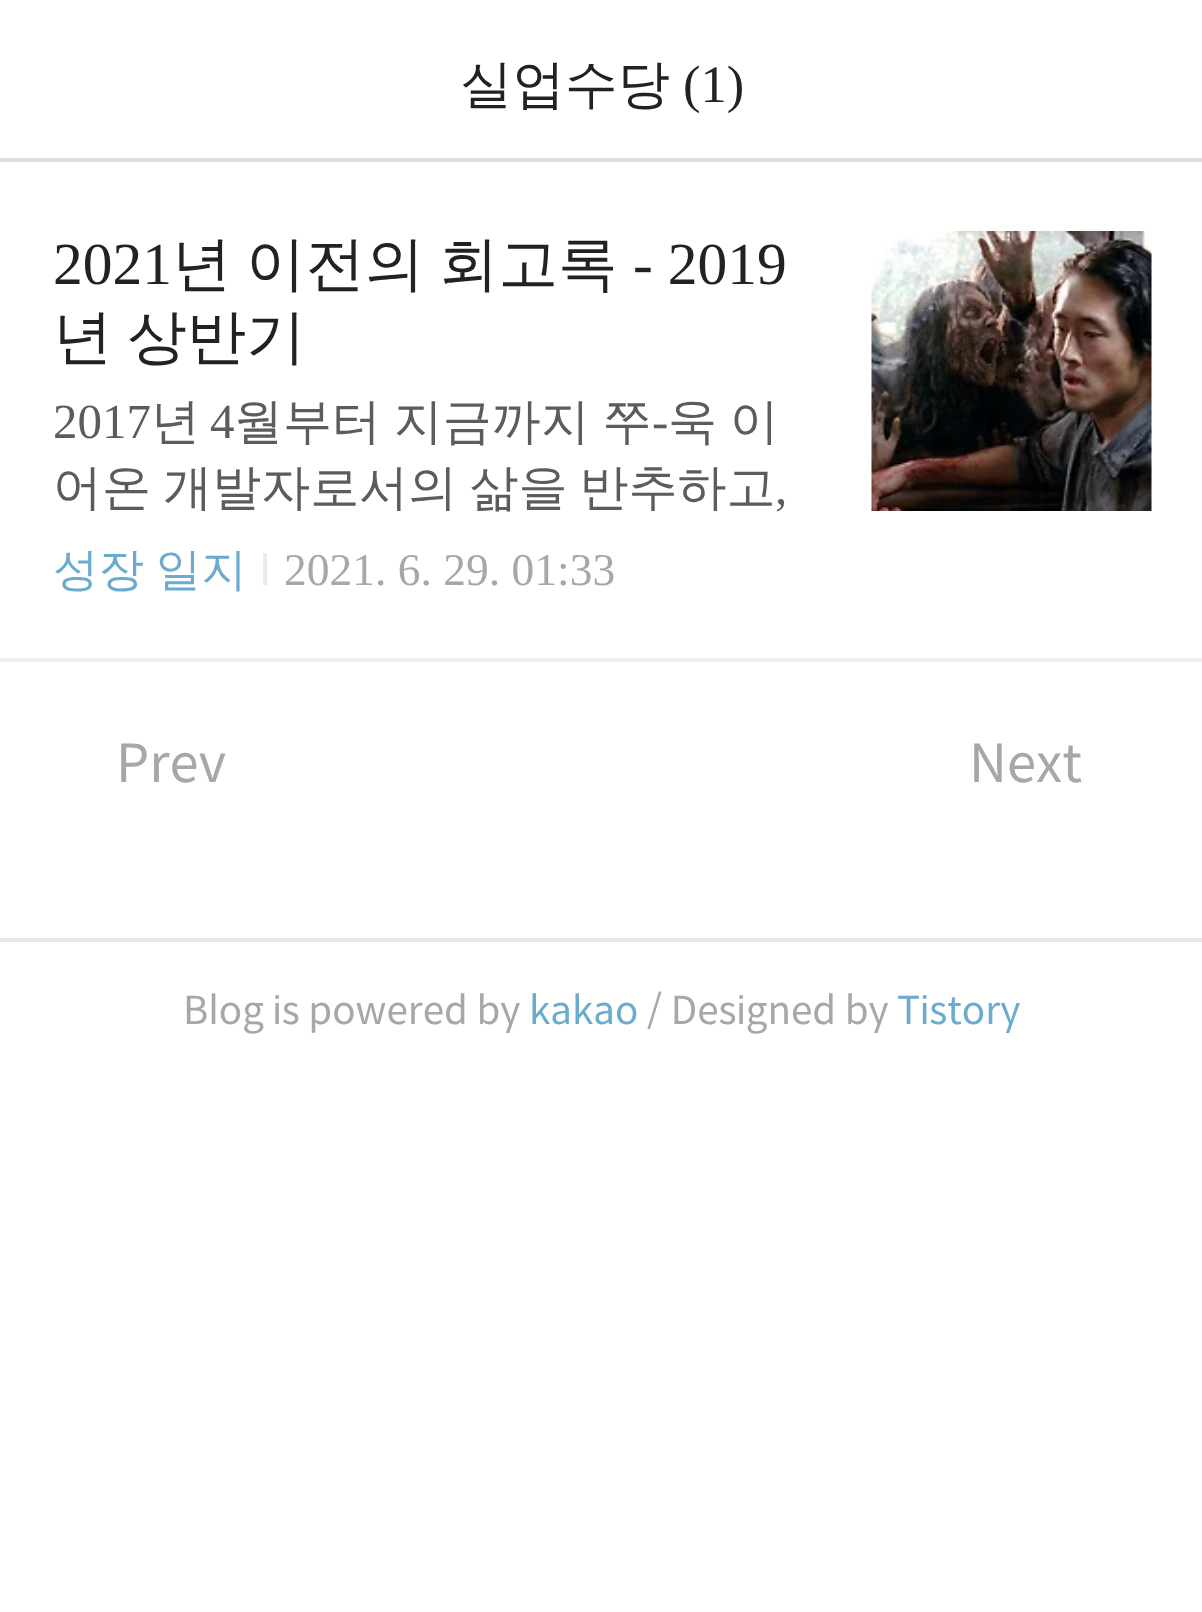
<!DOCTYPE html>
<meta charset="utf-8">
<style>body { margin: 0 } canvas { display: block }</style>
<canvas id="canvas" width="1202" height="1612"></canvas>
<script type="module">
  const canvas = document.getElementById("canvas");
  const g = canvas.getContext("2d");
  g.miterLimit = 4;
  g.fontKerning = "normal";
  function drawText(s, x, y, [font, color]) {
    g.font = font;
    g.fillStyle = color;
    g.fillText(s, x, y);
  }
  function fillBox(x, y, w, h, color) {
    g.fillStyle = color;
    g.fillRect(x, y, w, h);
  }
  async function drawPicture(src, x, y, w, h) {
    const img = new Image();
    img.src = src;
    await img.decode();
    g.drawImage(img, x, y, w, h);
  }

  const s1 = ["500 52.5px WenQuanYi Zen Hei", "#222222"];
  const s2 = ["52.5px Liberation Serif", "#222222"];
  const s3 = ["59.5px Liberation Serif", "#222222"];
  const s4 = ["500 59.5px WenQuanYi Zen Hei", "#222222"];
  const s5 = ["49px Liberation Serif", "#5C5C5C"];
  const s6 = ["500 49px WenQuanYi Zen Hei", "#5C5C5C"];
  const s7 = ["500 45.5px WenQuanYi Zen Hei", "#6BACCE"];
  const s8 = ["45.5px Liberation Serif", "#A7A7A7"];
  const s9 = ["52.5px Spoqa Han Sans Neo", "#A7A7A7"];
  const s10 = ["38.5px Spoqa Han Sans Neo", "#A7A7A7"];
  const s11 = ["38.5px Spoqa Han Sans Neo", "#6BACCE"];

  fillBox(0, 0, 1202, 1612, "#FFFFFF");
  fillBox(0, 158, 1202, 4, "#E0E0E0");
  drawText("실업수당", 460, 102, s1);
  drawText("(1)", 683, 102, s2);
  fillBox(0, 658, 1202, 4, "#EFEFEF");
  drawText("2021", 53, 284, s3);
  drawText("년", 172, 284, s4);
  drawText("이전의", 246, 284, s4);
  drawText("회고록", 439, 284, s4);
  drawText("- 2019", 633, 284, s3);
  g.wordSpacing = "-3px";
  drawText("년 상반기", 53, 357, s4);
  g.wordSpacing = "0px";
  drawText("2017", 53, 438, s5);
  drawText("년", 151, 438, s6);
  drawText("4", 210, 438, s5);
  g.wordSpacing = "-2px";
  drawText("월부터 지금까지 쭈", 234, 438, s6);
  g.wordSpacing = "0px";
  drawText("-", 652, 438, s5);
  g.wordSpacing = "-2px";
  drawText("욱 이", 668, 438, s6);
  g.wordSpacing = "-2.5px";
  drawText("어온 개발자로서의 삶을 반추하고", 53, 504, s6);
  g.wordSpacing = "0px";
  drawText(",", 775, 504, s5);
  await drawPicture("pic1.png", 871, 231, 281, 280);
  g.wordSpacing = "-2px";
  drawText("성장 일지", 53, 585, s7);
  fillBox(263, 553, 4, 32, "#EBEBEB");
  g.wordSpacing = "0px";
  drawText("2021. 6. 29. 01:33", 284, 585, s8);
  drawText("Prev", 116, 782, s9);
  drawText("Next", 969, 782, s9);
  fillBox(0, 938, 1202, 4, "#E8E8E8");
  drawText("Blog is powered by", 183, 1024, s10);
  drawText("kakao", 529, 1024, s11);
  drawText("/ Designed by", 647, 1024, s10);
  drawText("Tistory", 897, 1024, s11);
</script>
